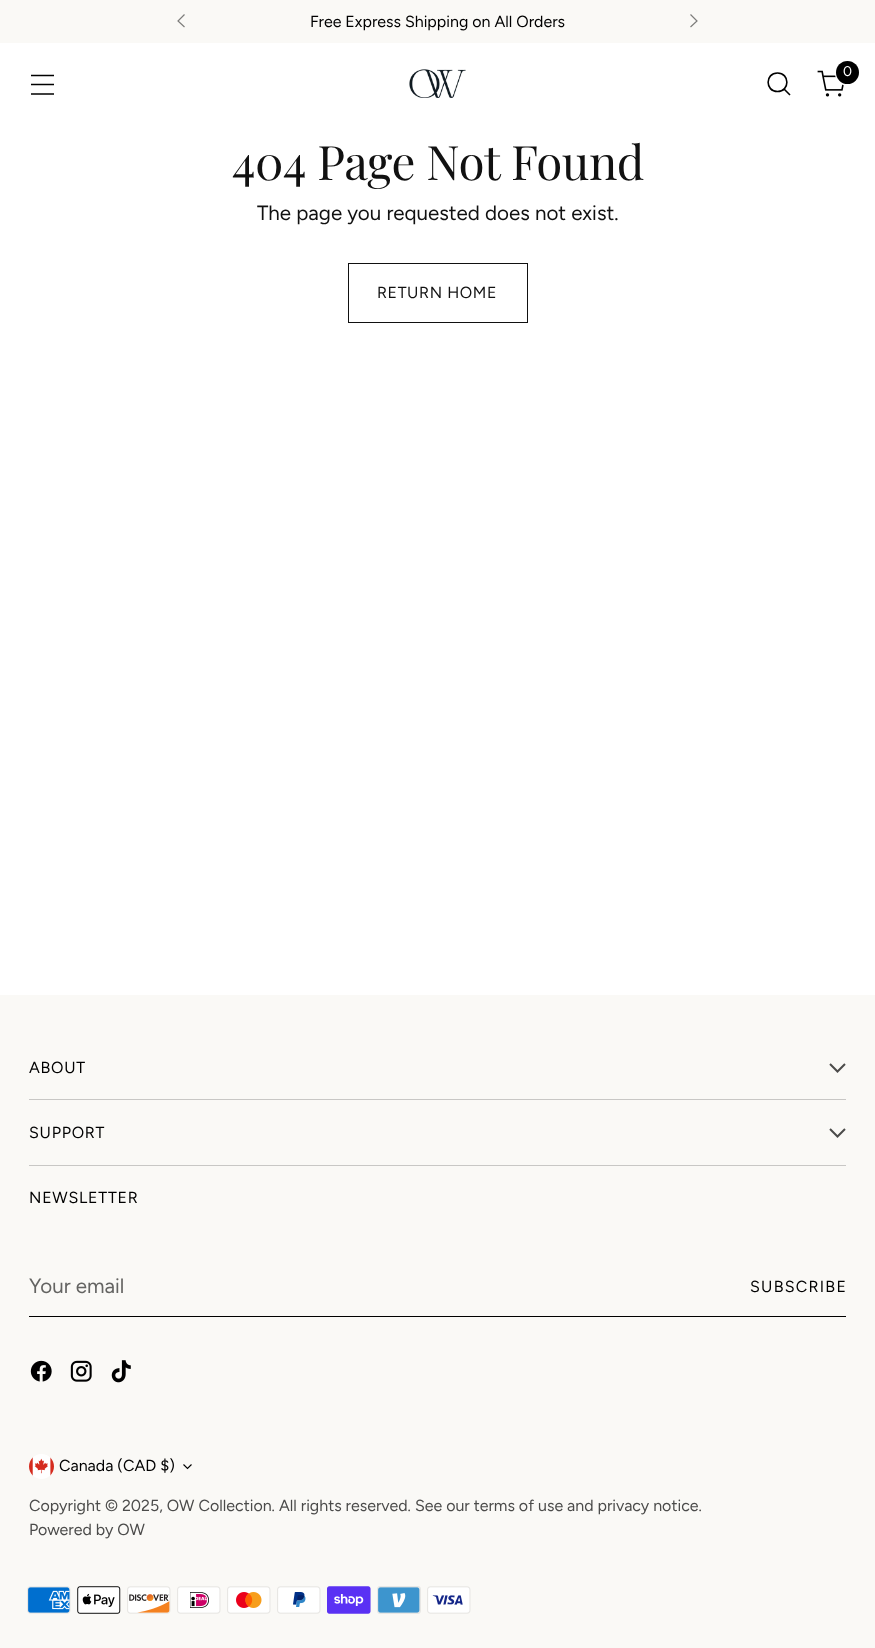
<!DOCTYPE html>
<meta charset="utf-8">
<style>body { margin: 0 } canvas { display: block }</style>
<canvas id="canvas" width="875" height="1648"></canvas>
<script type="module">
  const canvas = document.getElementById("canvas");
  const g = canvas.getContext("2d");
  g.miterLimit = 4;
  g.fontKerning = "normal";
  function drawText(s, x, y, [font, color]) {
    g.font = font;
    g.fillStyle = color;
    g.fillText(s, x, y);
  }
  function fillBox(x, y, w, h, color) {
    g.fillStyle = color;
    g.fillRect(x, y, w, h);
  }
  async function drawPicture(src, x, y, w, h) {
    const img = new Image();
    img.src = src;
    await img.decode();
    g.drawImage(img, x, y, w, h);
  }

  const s1 = ["16px Figtree", "#000000"];
  const s2 = ["14px Figtree", "#FFFFFF"];
  const s3 = ["47.5px Playfair Display", "#111111"];
  const s4 = ["20.6px Figtree", "#111111"];
  const s5 = ["16px Figtree", "#111111"];
  const s6 = ["20.6px Figtree", "#646462"];
  const s7 = ["16px Figtree", "#4B4B4A"];

  fillBox(0, 0, 875, 1648, "#FFFFFF");
  fillBox(0, 0, 875, 43, "#FAF9F6");
  g.beginPath();
  g.moveTo(184.5, 14.5);
  g.lineTo(178, 21);
  g.lineTo(184.5, 27);
  g.strokeStyle = "#7D7D7B";
  g.lineWidth = 1.2;
  g.stroke();
  g.beginPath();
  g.moveTo(690.5, 27);
  g.lineTo(697, 21);
  g.lineTo(690.5, 14.5);
  g.stroke();
  drawText("Free Express Shipping on All Orders", 310, 27, s1);
  g.beginPath();
  g.moveTo(31, 84.5);
  g.lineTo(54, 84.5);
  g.moveTo(31, 75.5);
  g.lineTo(54, 75.5);
  g.moveTo(31, 94);
  g.lineTo(54, 94);
  g.strokeStyle = "#000000";
  g.lineWidth = 1.6;
  g.stroke();
  await drawPicture("pic1.png", 409, 69, 57, 29);
  g.beginPath();
  g.moveTo(777.5, 91.5);
  g.bezierCurveTo(790, 91.5, 790, 73, 777.5, 73);
  g.bezierCurveTo(765, 73, 765, 91.5, 777.5, 91.5);
  g.closePath();
  g.lineCap = "round";
  g.stroke();
  g.beginPath();
  g.moveTo(784, 89);
  g.lineTo(790, 95);
  g.lineCap = "butt";
  g.stroke();
  await drawPicture("pic2.png", 817, 70, 28, 27);
  g.beginPath();
  g.arc(848, 73, 12, 0, Math.PI * 2);
  g.strokeStyle = "#FFFFFF";
  g.lineWidth = 2;
  g.stroke();
  g.beginPath();
  g.arc(847.5, 72.5, 11.5, 0, Math.PI * 2);
  g.fill();
  drawText("0", 843, 76, s2);
  g.letterSpacing = "-0.5px";
  drawText("404 Page Not Found", 232, 180, s3);
  g.letterSpacing = "0px";
  drawText("The page you requested does not exist.", 257, 220, s4);
  g.strokeStyle = "#111111";
  g.lineWidth = 1;
  g.strokeRect(348.5, 263.5, 179, 59);
  g.letterSpacing = "0.6px";
  drawText("RETURN HOME", 377, 298, s5);
  fillBox(0, 995, 875, 653, "#FAF9F6");
  fillBox(29, 1099, 817, 1, "#C8C7C5");
  g.letterSpacing = "0.75px";
  drawText("ABOUT", 29, 1073, s1);
  g.beginPath();
  g.moveTo(830, 1064);
  g.lineTo(837.5, 1071.5);
  g.lineTo(845, 1064);
  g.strokeStyle = "#4B4B4A";
  g.lineWidth = 2;
  g.stroke();
  fillBox(29, 1165, 817, 1, "#C8C7C5");
  drawText("SUPPORT", 29, 1138, s1);
  g.beginPath();
  g.moveTo(830, 1129);
  g.lineTo(837.5, 1136.5);
  g.lineTo(845, 1129);
  g.stroke();
  drawText("NEWSLETTER", 29, 1203, s1);
  fillBox(29, 1316, 817, 1, "#000000");
  g.letterSpacing = "0px";
  drawText("Your email", 29, 1293, s6);
  g.letterSpacing = "1.25px";
  drawText("SUBSCRIBE", 750, 1292, s1);
  await drawPicture("pic3.png", 30, 1360, 22, 22);
  await drawPicture("pic4.png", 70, 1360, 22, 22);
  await drawPicture("pic5.png", 111, 1360, 20, 23);
  await drawPicture("pic6.png", 29, 1454, 25, 25);
  g.letterSpacing = "0px";
  drawText("Canada (CAD $)", 59, 1471, s1);
  g.beginPath();
  g.moveTo(183.5, 1464.5);
  g.lineTo(187.5, 1468.5);
  g.lineTo(191.5, 1464.5);
  g.strokeStyle = "#000000";
  g.lineWidth = 1.1;
  g.stroke();
  drawText("Copyright © 2025, OW Collection. All rights reserved. See our terms of use and privacy notice.", 29, 1511, s7);
  drawText("Powered by OW", 29, 1535, s7);
  await drawPicture("pic7.png", 27, 1586, 44, 28);
  await drawPicture("pic8.png", 77, 1586, 44, 28);
  await drawPicture("pic9.png", 127, 1586, 44, 28);
  await drawPicture("pic10.png", 177, 1586, 44, 28);
  await drawPicture("pic11.png", 227, 1586, 44, 28);
  await drawPicture("pic12.png", 277, 1586, 44, 28);
  await drawPicture("pic13.png", 327, 1586, 44, 28);
  await drawPicture("pic14.png", 377, 1586, 44, 28);
  await drawPicture("pic15.png", 427, 1586, 44, 28);
</script>
